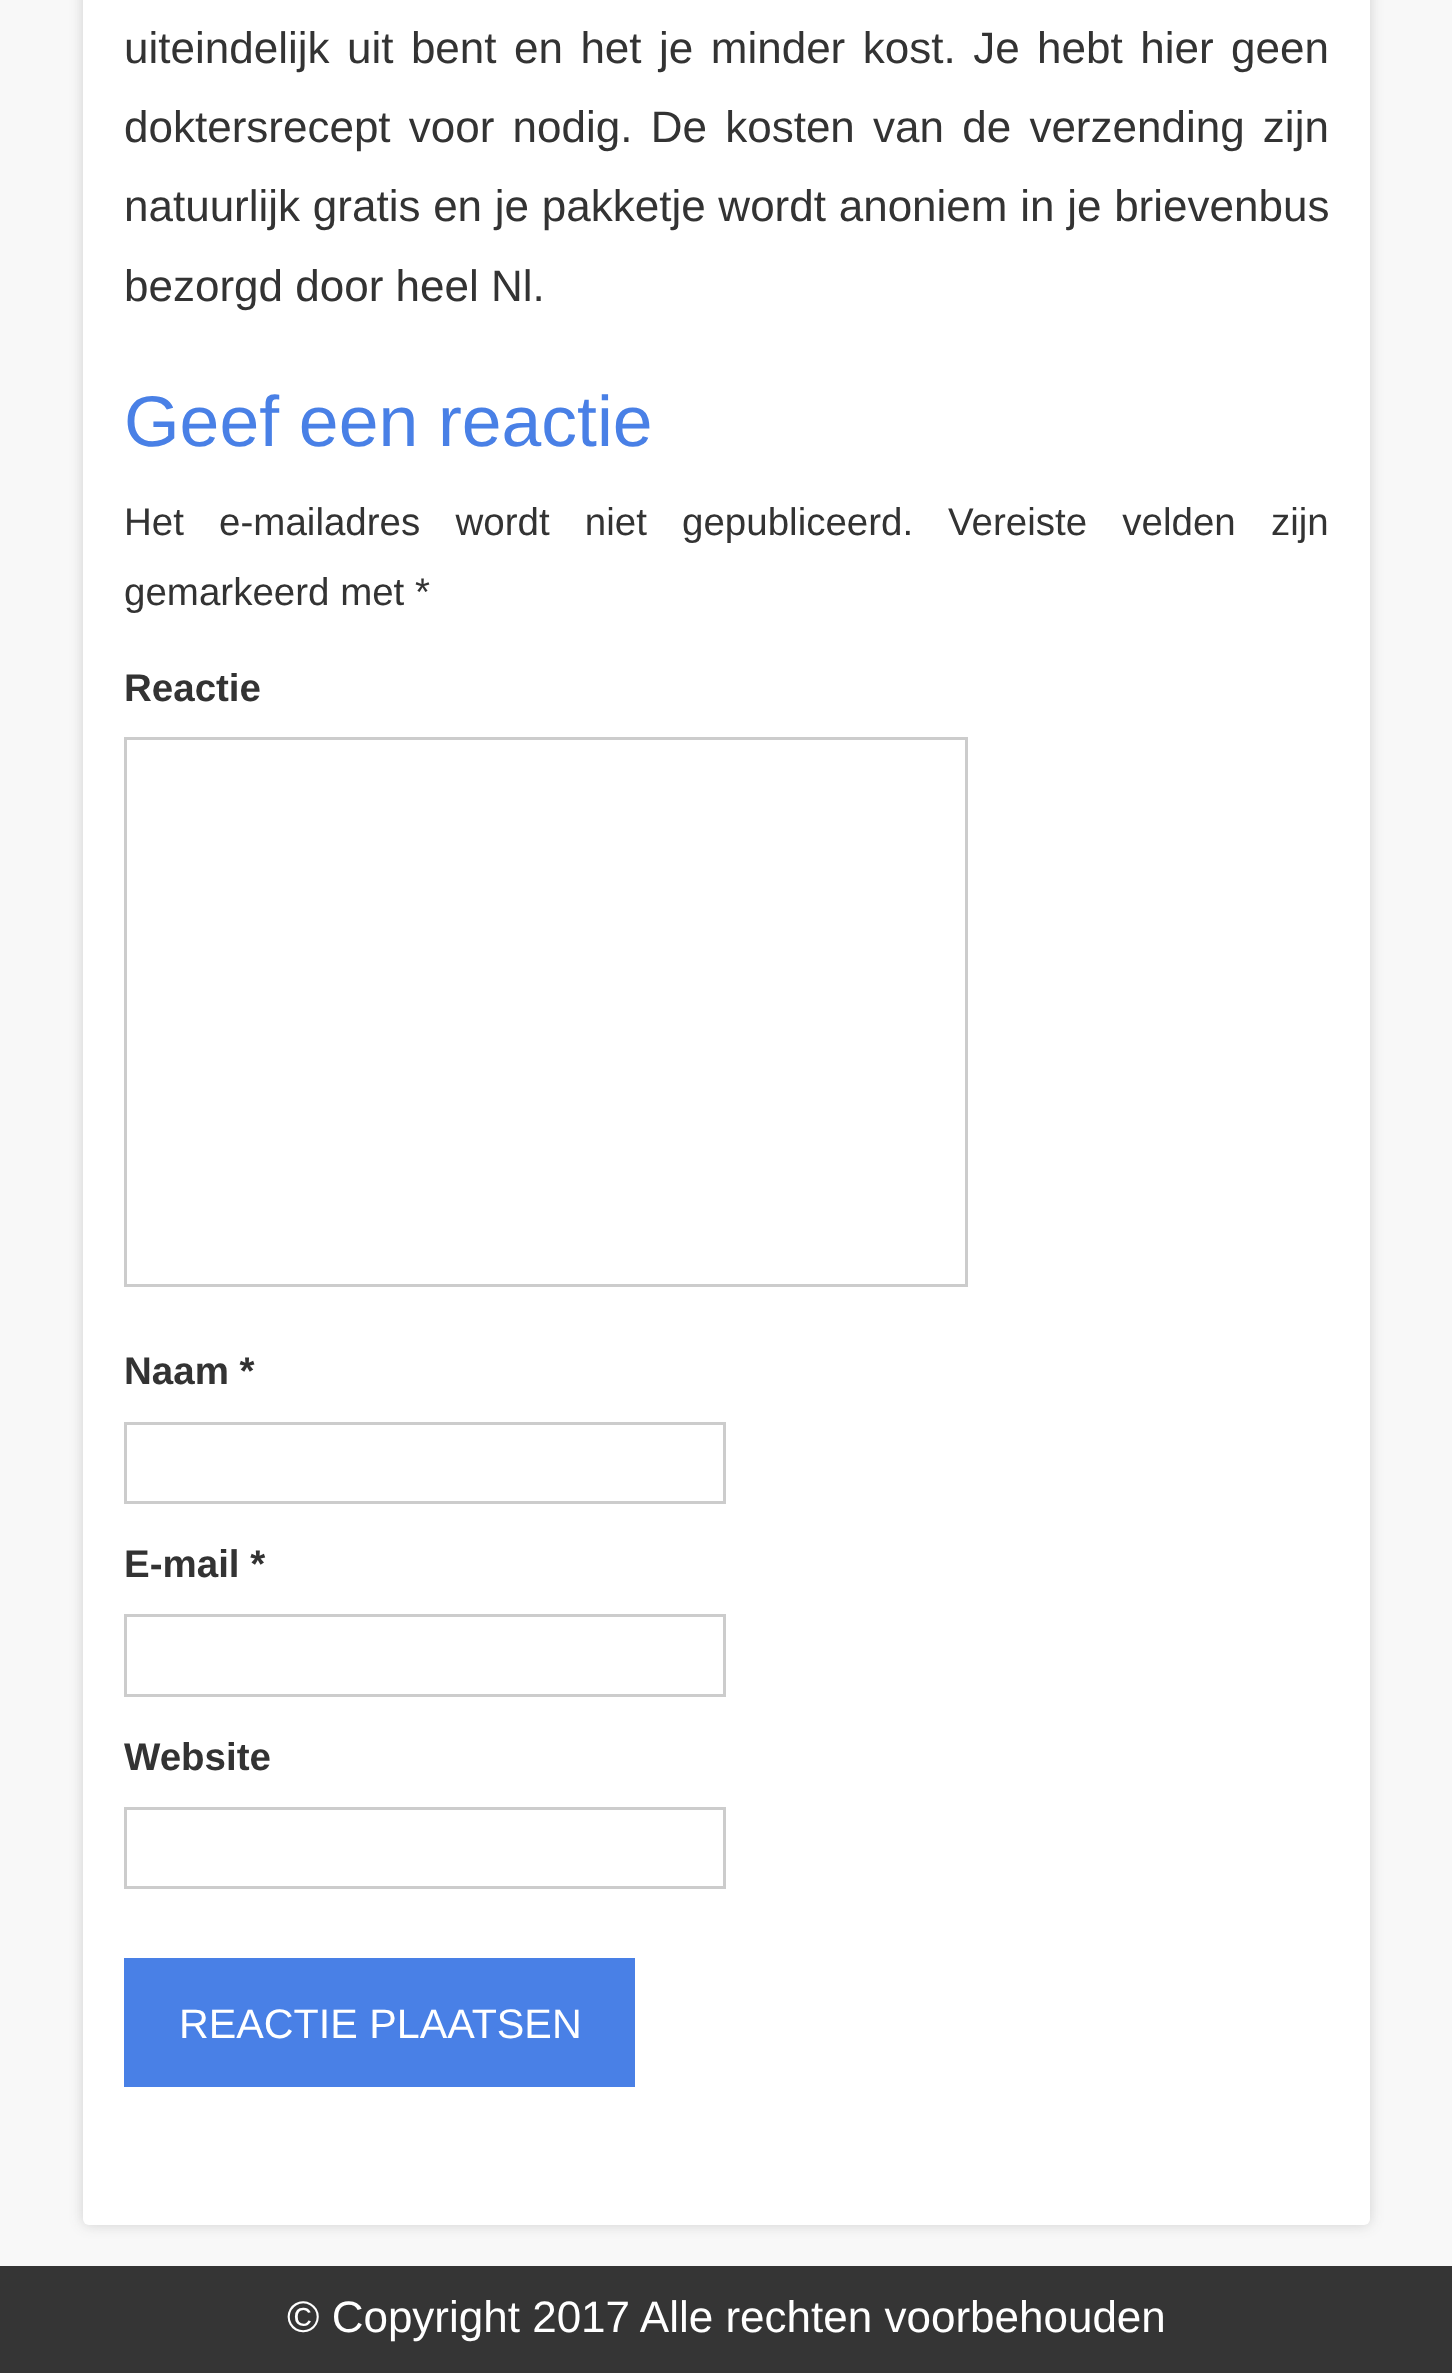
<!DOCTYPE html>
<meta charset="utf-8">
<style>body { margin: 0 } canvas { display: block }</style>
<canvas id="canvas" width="1452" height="2373"></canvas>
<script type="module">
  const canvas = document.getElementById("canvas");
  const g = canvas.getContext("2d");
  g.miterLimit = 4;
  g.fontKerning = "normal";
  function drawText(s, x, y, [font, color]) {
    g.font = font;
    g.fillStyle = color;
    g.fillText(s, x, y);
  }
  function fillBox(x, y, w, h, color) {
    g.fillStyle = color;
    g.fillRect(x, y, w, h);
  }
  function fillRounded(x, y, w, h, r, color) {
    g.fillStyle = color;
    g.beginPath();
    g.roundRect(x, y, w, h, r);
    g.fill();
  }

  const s1 = ["44px Liberation Sans", "#333333"];
  const s2 = ["71.5px Liberation Sans", "#4980E6"];
  const s3 = ["38.5px Liberation Sans", "#333333"];
  const s4 = ["bold 38.5px Liberation Sans", "#333333"];
  const s5 = ["41.25px Liberation Sans", "#FFFFFF"];
  const s6 = ["44px Liberation Sans", "#FFFFFF"];

  fillBox(0, 0, 1452, 2373, "#F8F8F8");
  g.fillStyle = "rgba(50, 50, 50, 0.2)";
  g.filter = "blur(7px)";
  g.beginPath();
  g.roundRect(83, -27, 1287, 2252, 6);
  g.fill();
  g.filter = "none";
  fillRounded(83, -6, 1287, 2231, 6, "#FFFFFF");
  g.wordSpacing = "5.25px";
  drawText("uiteindelijk uit bent en het je minder kost. Je hebt hier geen", 124, 63, s1);
  g.wordSpacing = "6px";
  drawText("doktersrecept voor nodig. De kosten van de verzending zijn", 124, 142, s1);
  g.wordSpacing = "0.5px";
  drawText("natuurlijk gratis en je pakketje wordt anoniem in je brievenbus", 124, 221, s1);
  g.wordSpacing = "0px";
  drawText("bezorgd door heel Nl.", 124, 301, s1);
  drawText("Geef een reactie", 124, 446, s2);
  g.wordSpacing = "24.5px";
  drawText("Het e-mailadres wordt niet gepubliceerd.", 124, 535, s3);
  drawText("Vereiste velden zijn", 948, 535, s3);
  g.wordSpacing = "0px";
  drawText("gemarkeerd met *", 124, 605, s3);
  drawText("Reactie", 124, 701, s4);
  g.strokeStyle = "#CCCCCC";
  g.lineWidth = 3;
  g.strokeRect(125.5, 738.5, 841, 547);
  drawText("Naam *", 124, 1384, s4);
  g.strokeRect(125.5, 1423.5, 599, 79);
  drawText("E-mail *", 124, 1577, s4);
  g.strokeRect(125.5, 1615.5, 599, 80);
  drawText("Website", 124, 1770, s4);
  g.strokeRect(125.5, 1808.5, 599, 79);
  fillBox(124, 1958, 511, 129, "#4980E6");
  drawText("REACTIE PLAATSEN", 179, 2038, s5);
  fillBox(0, 2266, 1452, 107, "#353535");
  drawText("© Copyright 2017 Alle rechten voorbehouden", 287, 2332, s6);
</script>
